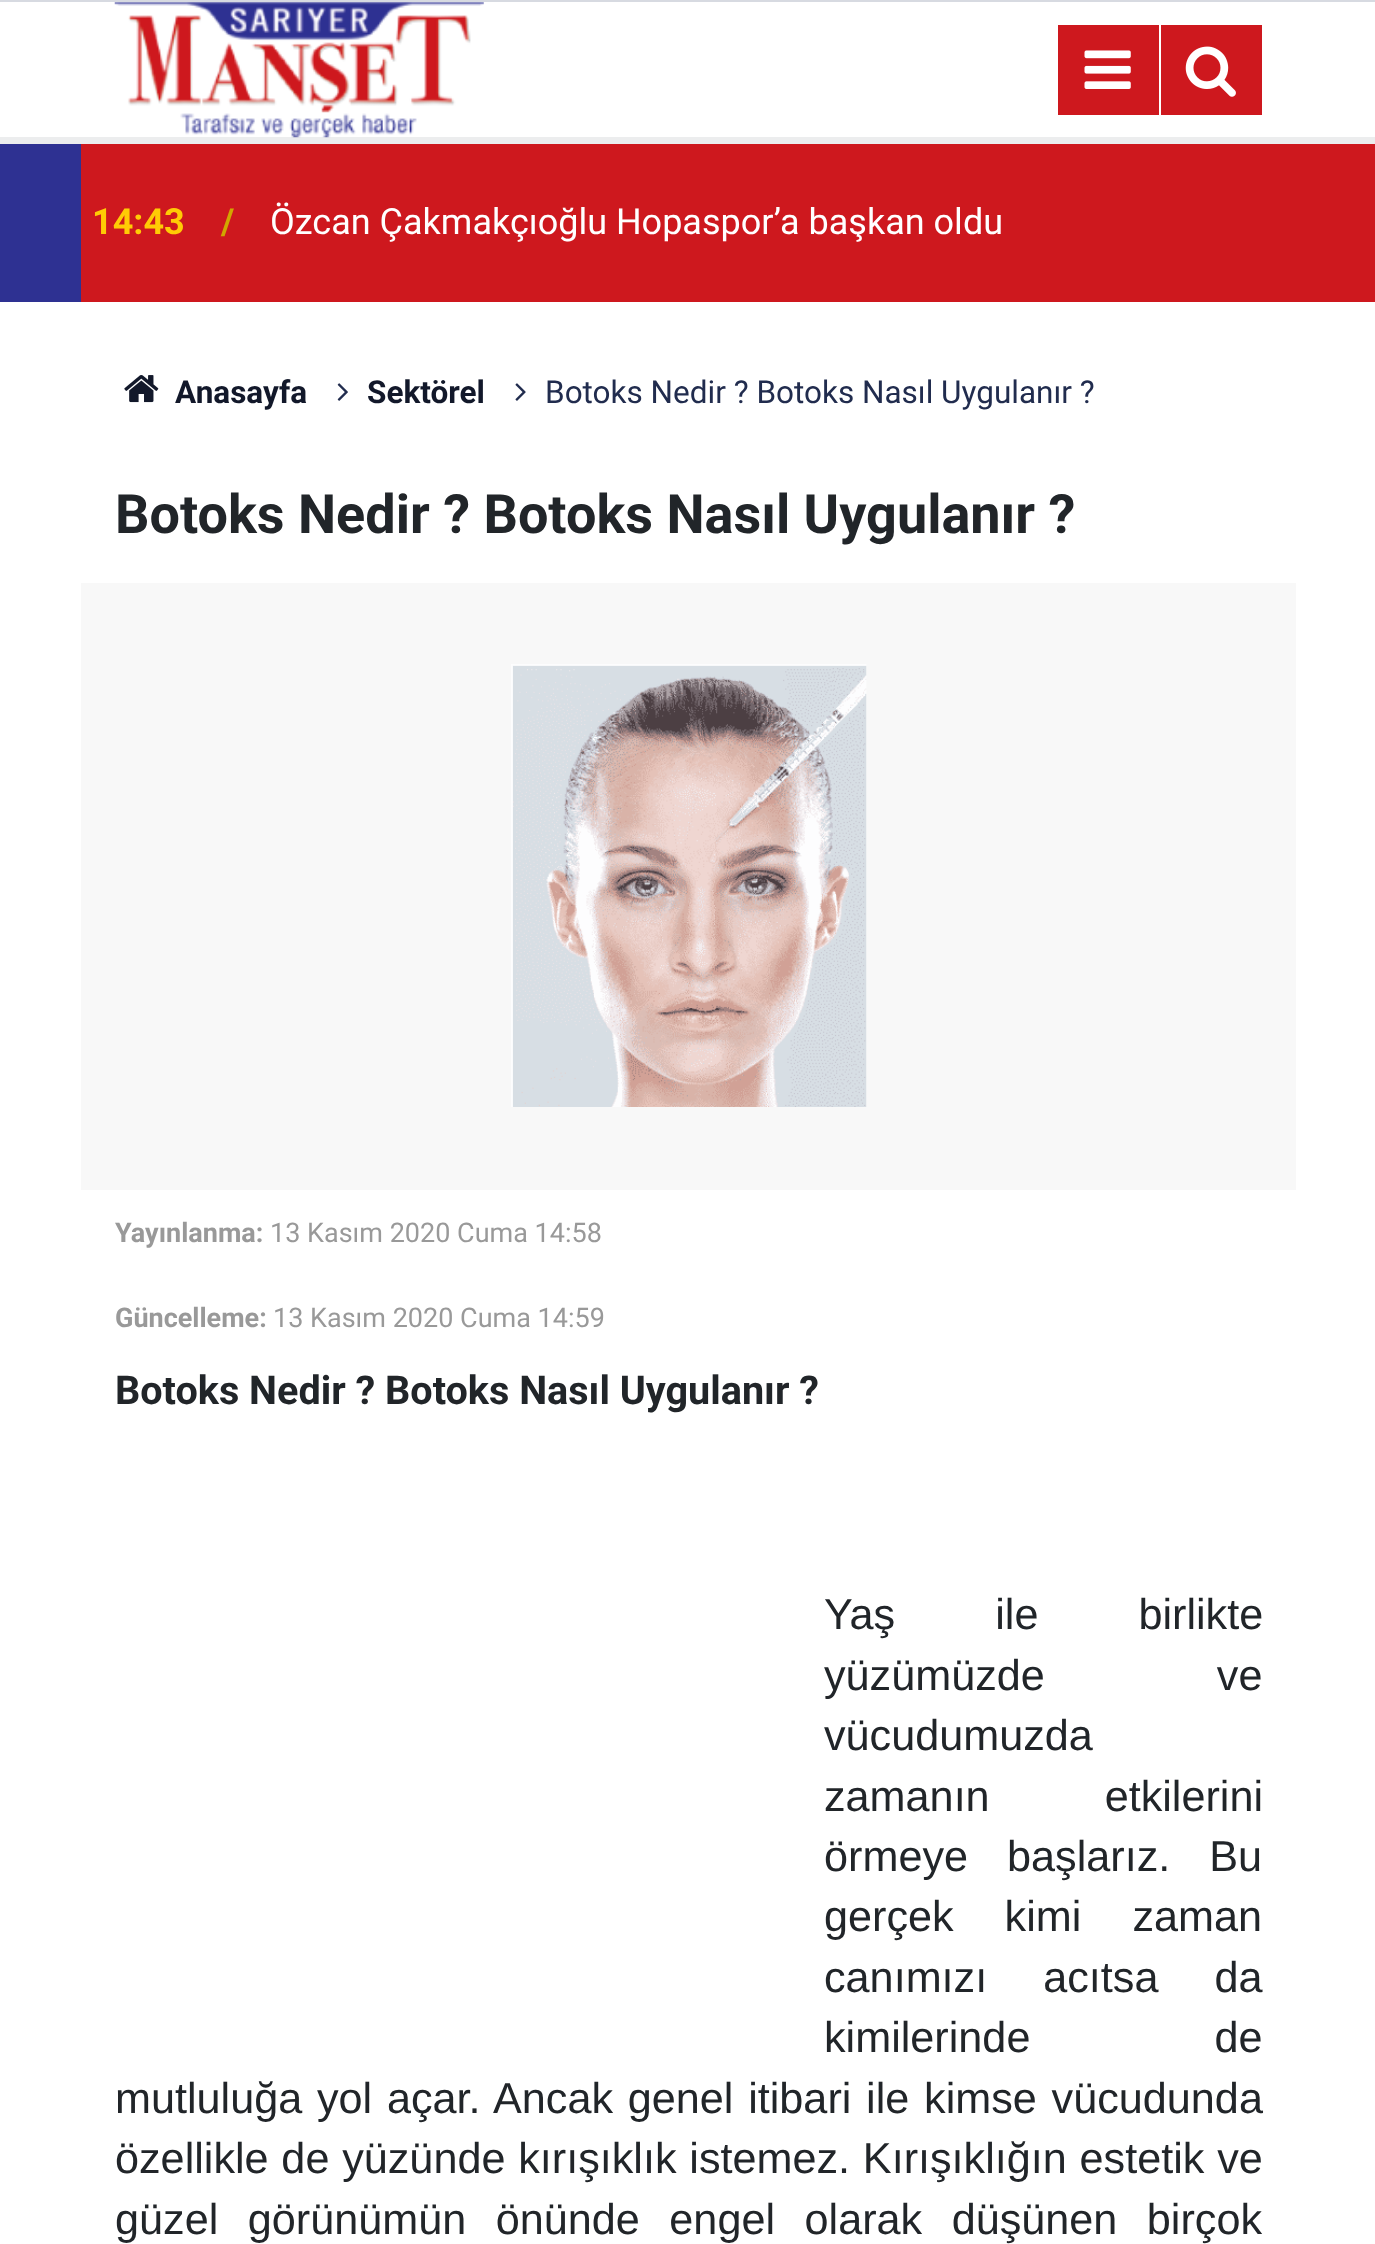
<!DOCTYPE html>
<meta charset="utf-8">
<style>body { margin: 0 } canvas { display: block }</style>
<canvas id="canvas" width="1375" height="2244"></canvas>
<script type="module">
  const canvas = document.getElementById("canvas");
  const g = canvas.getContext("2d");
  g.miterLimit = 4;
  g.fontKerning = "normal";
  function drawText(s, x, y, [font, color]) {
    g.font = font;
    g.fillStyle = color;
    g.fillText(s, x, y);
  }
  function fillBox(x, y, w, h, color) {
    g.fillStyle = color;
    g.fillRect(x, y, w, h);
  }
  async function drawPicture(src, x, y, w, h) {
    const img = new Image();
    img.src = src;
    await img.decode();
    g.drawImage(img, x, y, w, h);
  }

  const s1 = ["bold 36px Roboto", "#FFCB05"];
  const s2 = ["bold 36px Roboto", "#D1A600"];
  const s3 = ["36px Roboto", "#FFFFFF"];
  const s4 = ["bold 31.5px Roboto", "#12182A"];
  const s5 = ["31.5px Roboto", "#212C4E"];
  const s6 = ["bold 54px Roboto", "#212529"];
  const s7 = ["bold 27px Roboto", "#999999"];
  const s8 = ["27px Roboto", "#999999"];
  const s9 = ["bold 39.6px Roboto", "#212529"];
  const s10 = ["43.2px Liberation Sans", "#212529"];

  fillBox(0, 0, 1375, 2244, "#FFFFFF");
  fillBox(0, 0, 1375, 2, "#D7DAE1");
  fillBox(0, 137, 1375, 7, "#ECEDEE");
  await drawPicture("pic1.png", 114, 2, 370, 136);
  fillBox(1058, 25, 101, 90, "#CE181E");
  await drawPicture("pic2.png", 1084, 50, 47, 39);
  fillBox(1161, 25, 101, 90, "#CE181E");
  await drawPicture("pic3.png", 1185, 46, 51, 51);
  fillBox(0, 144, 81, 158, "#2E3192");
  fillBox(81, 144, 1294, 158, "#CE181E");
  drawText("14:43", 92, 234, s1);
  drawText("/", 221, 234, s2);
  drawText("Özcan Çakmakçıoğlu Hopaspor’a başkan oldu", 270, 234, s3);
  await drawPicture("pic4.png", 124, 375, 35, 28);
  drawText("Anasayfa", 175, 403, s4);
  await drawPicture("pic5.png", 337, 383, 11, 18);
  drawText("Sektörel", 367, 403, s4);
  await drawPicture("pic6.png", 515, 383, 11, 18);
  drawText("Botoks Nedir ? Botoks Nasıl Uygulanır ?", 545, 403, s5);
  drawText("Botoks Nedir ? Botoks Nasıl Uygulanır ?", 115, 533, s6);
  fillBox(81, 583, 1215, 607, "#F8F8F8");
  await drawPicture("pic7.png", 511, 664, 356, 443);
  drawText("Yayınlanma:", 115, 1242, s7);
  drawText("13 Kasım 2020 Cuma 14:58", 270, 1242, s8);
  drawText("Güncelleme:", 115, 1327, s7);
  drawText("13 Kasım 2020 Cuma 14:59", 273, 1327, s8);
  drawText("Botoks Nedir ? Botoks Nasıl Uygulanır ?", 115, 1404, s9);
  g.wordSpacing = "88px";
  drawText("Yaş ile birlikte", 824, 1629, s10);
  g.wordSpacing = "160px";
  drawText("yüzümüzde ve", 824, 1690, s10);
  g.wordSpacing = "0px";
  drawText("vücudumuzda", 824, 1750, s10);
  g.wordSpacing = "103px";
  drawText("zamanın etkilerini", 824, 1811, s10);
  g.wordSpacing = "27px";
  drawText("örmeye başlarız. Bu", 824, 1871, s10);
  g.wordSpacing = "39px";
  drawText("gerçek kimi zaman", 824, 1931, s10);
  g.wordSpacing = "44px";
  drawText("canımızı acıtsa da", 824, 1992, s10);
  g.wordSpacing = "172px";
  drawText("kimilerinde de", 824, 2052, s10);
  g.wordSpacing = "2.75px";
  drawText("mutluluğa yol açar. Ancak genel itibari ile kimse vücudunda", 115, 2113, s10);
  g.wordSpacing = "0.75px";
  drawText("özellikle de yüzünde kırışıklık istemez. Kırışıklığın estetik ve", 115, 2173, s10);
  g.wordSpacing = "17.5px";
  drawText("güzel görünümün önünde engel olarak düşünen birçok", 115, 2234, s10);
</script>
